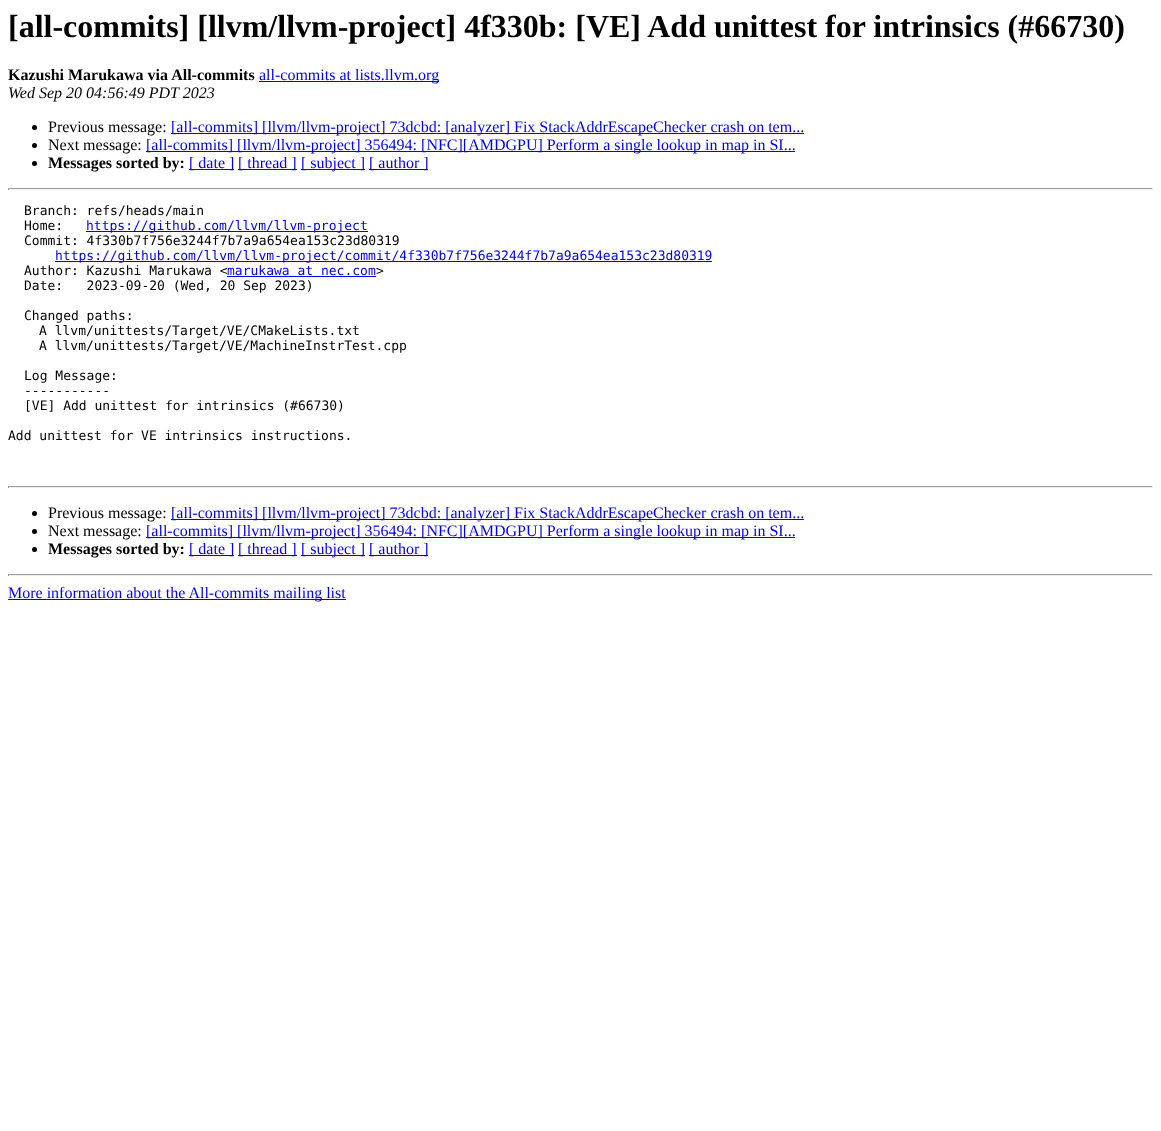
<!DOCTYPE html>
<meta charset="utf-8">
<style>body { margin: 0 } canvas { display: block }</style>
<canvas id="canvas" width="1161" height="1131"></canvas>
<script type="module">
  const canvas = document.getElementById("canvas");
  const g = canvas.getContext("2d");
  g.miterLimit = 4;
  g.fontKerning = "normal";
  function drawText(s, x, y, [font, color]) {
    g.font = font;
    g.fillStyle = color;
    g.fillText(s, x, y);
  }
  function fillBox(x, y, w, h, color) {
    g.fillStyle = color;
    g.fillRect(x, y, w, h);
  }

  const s1 = ["bold 32px Liberation Serif", "#000000"];
  const s2 = ["bold 16px Liberation Serif", "#000000"];
  const s3 = ["16px Liberation Serif", "#0000EE"];
  const s4 = ["italic 16px Liberation Serif", "#000000"];
  const s5 = ["16px Liberation Serif", "#000000"];
  const s6 = ["13px DejaVu Sans Mono", "#000000"];
  const s7 = ["13px DejaVu Sans Mono", "#0000EE"];

  fillBox(0, 0, 1161, 1131, "#FFFFFF");
  drawText("[all-commits] [llvm/llvm-project] 4f330b: [VE] Add unittest for intrinsics (#66730)", 8, 37, s1);
  drawText("Kazushi Marukawa via All-commits", 8, 80, s2);
  fillBox(259, 81, 180, 1, "#0000EE");
  drawText("all-commits at lists.llvm.org", 259, 80, s3);
  drawText("Wed Sep 20 04:56:49 PDT 2023", 8, 98, s4);
  g.beginPath();
  g.arc(34.5, 127.5, 2.5, 0, Math.PI * 2);
  g.fill();
  drawText("Previous message:", 48, 132, s5);
  fillBox(171, 133, 633, 1, "#0000EE");
  drawText("[all-commits] [llvm/llvm-project] 73dcbd: [analyzer] Fix StackAddrEscapeChecker crash on tem...", 171, 132, s3);
  g.fillStyle = "#000000";
  g.beginPath();
  g.arc(34.5, 145.5, 2.5, 0, Math.PI * 2);
  g.fill();
  drawText("Next message:", 48, 150, s5);
  fillBox(146, 151, 649, 1, "#0000EE");
  drawText("[all-commits] [llvm/llvm-project] 356494: [NFC][AMDGPU] Perform a single lookup in map in SI...", 146, 150, s3);
  g.fillStyle = "#000000";
  g.beginPath();
  g.arc(34.5, 163.5, 2.5, 0, Math.PI * 2);
  g.fill();
  drawText("Messages sorted by:", 48, 168, s2);
  fillBox(189, 169, 45, 1, "#0000EE");
  drawText("[ date ]", 189, 168, s3);
  fillBox(238, 169, 59, 1, "#0000EE");
  drawText("[ thread ]", 238, 168, s3);
  fillBox(301, 169, 64, 1, "#0000EE");
  drawText("[ subject ]", 301, 168, s3);
  fillBox(369, 169, 59, 1, "#0000EE");
  drawText("[ author ]", 369, 168, s3);
  fillBox(8, 188, 1145, 1, "#9F9F9F");
  fillBox(1152, 188, 1, 2, "#EEEEEE");
  fillBox(8, 189, 1145, 1, "#EEEEEE");
  fillBox(8, 188, 1, 2, "#9F9F9F");
  drawText("Branch: refs/heads/main", 24, 215, s6);
  drawText("Home:", 24, 230, s6);
  fillBox(86, 231, 282, 1, "#0000EE");
  drawText("https://github.com/llvm/llvm-project", 86, 230, s7);
  drawText("Commit: 4f330b7f756e3244f7b7a9a654ea153c23d80319", 24, 245, s6);
  fillBox(55, 261, 657, 1, "#0000EE");
  drawText("https://github.com/llvm/llvm-project/commit/4f330b7f756e3244f7b7a9a654ea153c23d80319", 55, 260, s7);
  drawText("Author: Kazushi Marukawa <", 24, 275, s6);
  drawText("marukawa at nec.com", 227, 275, s7);
  fillBox(227, 276, 149, 1, "#0000EE");
  drawText(">", 376, 275, s6);
  drawText("Date:   2023-09-20 (Wed, 20 Sep 2023)", 24, 290, s6);
  drawText("Changed paths:", 24, 320, s6);
  drawText("A llvm/unittests/Target/VE/CMakeLists.txt", 39, 335, s6);
  drawText("A llvm/unittests/Target/VE/MachineInstrTest.cpp", 39, 350, s6);
  drawText("Log Message:", 24, 380, s6);
  drawText("-----------", 24, 395, s6);
  drawText("[VE] Add unittest for intrinsics (#66730)", 24, 410, s6);
  drawText("Add unittest for VE intrinsics instructions.", 8, 440, s6);
  fillBox(8, 486, 1145, 1, "#9F9F9F");
  fillBox(1152, 486, 1, 2, "#EEEEEE");
  fillBox(8, 487, 1145, 1, "#EEEEEE");
  fillBox(8, 486, 1, 2, "#9F9F9F");
  g.fillStyle = "#000000";
  g.beginPath();
  g.arc(34.5, 513.5, 2.5, 0, Math.PI * 2);
  g.fill();
  drawText("Previous message:", 48, 518, s5);
  fillBox(171, 519, 633, 1, "#0000EE");
  drawText("[all-commits] [llvm/llvm-project] 73dcbd: [analyzer] Fix StackAddrEscapeChecker crash on tem...", 171, 518, s3);
  g.fillStyle = "#000000";
  g.beginPath();
  g.arc(34.5, 531.5, 2.5, 0, Math.PI * 2);
  g.fill();
  drawText("Next message:", 48, 536, s5);
  fillBox(146, 537, 649, 1, "#0000EE");
  drawText("[all-commits] [llvm/llvm-project] 356494: [NFC][AMDGPU] Perform a single lookup in map in SI...", 146, 536, s3);
  g.fillStyle = "#000000";
  g.beginPath();
  g.arc(34.5, 549.5, 2.5, 0, Math.PI * 2);
  g.fill();
  drawText("Messages sorted by:", 48, 554, s2);
  fillBox(189, 555, 45, 1, "#0000EE");
  drawText("[ date ]", 189, 554, s3);
  fillBox(238, 555, 59, 1, "#0000EE");
  drawText("[ thread ]", 238, 554, s3);
  fillBox(301, 555, 64, 1, "#0000EE");
  drawText("[ subject ]", 301, 554, s3);
  fillBox(369, 555, 59, 1, "#0000EE");
  drawText("[ author ]", 369, 554, s3);
  fillBox(8, 574, 1145, 1, "#9F9F9F");
  fillBox(1152, 574, 1, 2, "#EEEEEE");
  fillBox(8, 575, 1145, 1, "#EEEEEE");
  fillBox(8, 574, 1, 2, "#9F9F9F");
  fillBox(8, 599, 338, 1, "#0000EE");
  drawText("More information about the All-commits mailing list", 8, 598, s3);
</script>
